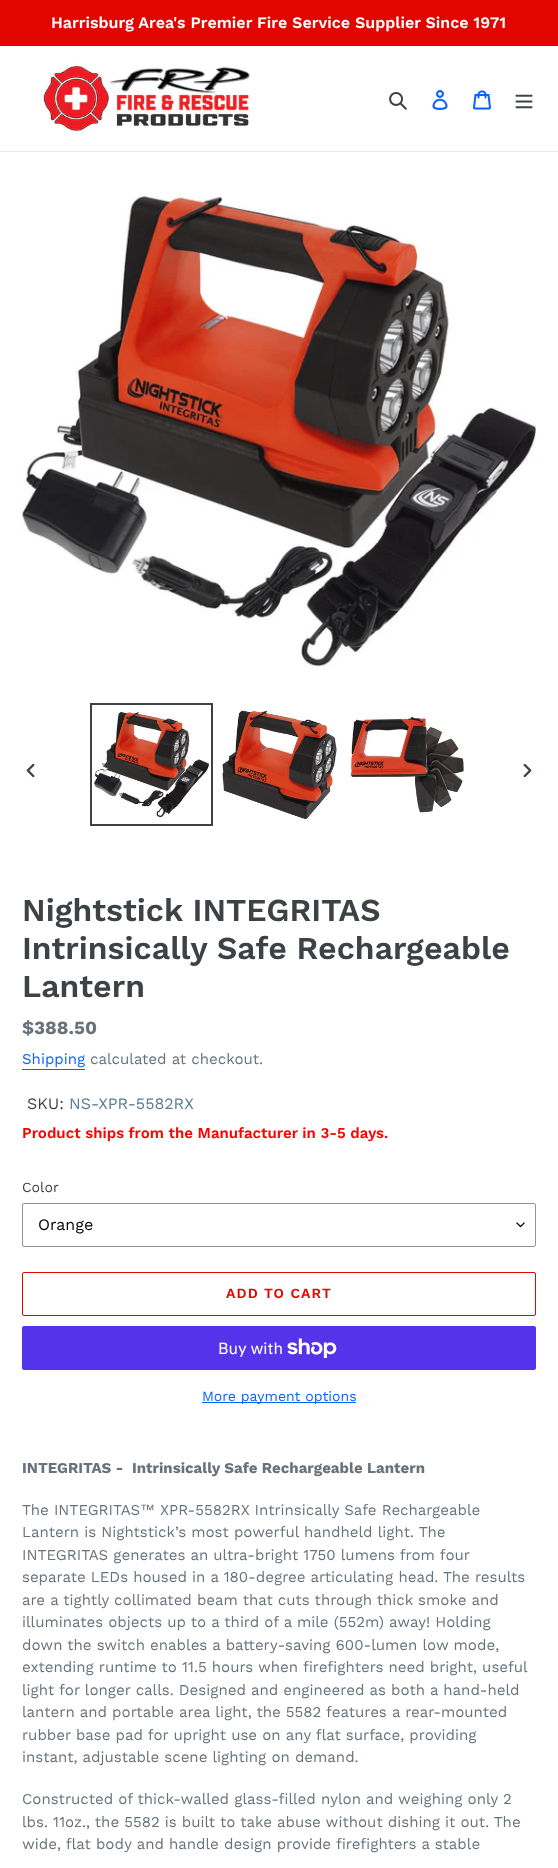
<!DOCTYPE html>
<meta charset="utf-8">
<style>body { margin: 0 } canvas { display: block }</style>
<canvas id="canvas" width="558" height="1868"></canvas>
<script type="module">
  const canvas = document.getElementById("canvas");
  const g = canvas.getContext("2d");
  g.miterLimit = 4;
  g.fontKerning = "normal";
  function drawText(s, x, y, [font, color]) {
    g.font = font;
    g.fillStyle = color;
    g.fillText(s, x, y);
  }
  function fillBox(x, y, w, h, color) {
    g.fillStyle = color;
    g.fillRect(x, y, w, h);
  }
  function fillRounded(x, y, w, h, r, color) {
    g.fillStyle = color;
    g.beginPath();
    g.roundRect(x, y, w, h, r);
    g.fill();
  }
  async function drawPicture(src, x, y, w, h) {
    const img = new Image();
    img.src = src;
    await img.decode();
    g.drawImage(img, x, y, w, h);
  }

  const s1 = ["600 16px Work Sans", "#FFFFFF"];
  const s2 = ["600 32px Work Sans", "#3D4246"];
  const s3 = ["bold 18.75px Work Sans", "#69727B"];
  const s4 = ["15px Work Sans", "#0963FC"];
  const s5 = ["15px Work Sans", "#69727B"];
  const s6 = ["16px Work Sans", "#3D4246"];
  const s7 = ["16px Work Sans", "#557B97"];
  const s8 = ["600 15px Work Sans", "#FF0000"];
  const s9 = ["14px Work Sans", "#3D4246"];
  const s10 = ["16px Work Sans", "#000000"];
  const s11 = ["600 14px Work Sans", "#E10600"];
  const s12 = ["16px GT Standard", "#FFFFFF"];
  const s13 = ["14px Work Sans", "#0963FC"];
  const s14 = ["bold 15px Work Sans", "#69727B"];
  const s15 = ["15px Liberation Sans", "#69727B"];

  fillBox(0, 0, 558, 1868, "#FFFFFF");
  fillBox(0, 0, 558, 46, "#E10600");
  drawText("Harrisburg Area's Premier Fire Service Supplier Since 1971", 51, 28, s1);
  fillBox(0, 151, 558, 1, "#E8E9EB");
  await drawPicture("pic1.png", 41, 61, 209, 72);
  await drawPicture("pic2.png", 389, 92, 18, 18);
  await drawPicture("pic3.png", 432, 90, 16, 20);
  await drawPicture("pic4.png", 473, 90, 18, 20);
  await drawPicture("pic5.png", 515, 94, 18, 15);
  await drawPicture("pic6.png", 22, 195, 514, 474);
  await drawPicture("pic7.png", 26, 764, 9, 14);
  g.strokeStyle = "#3D4246";
  g.lineWidth = 2;
  g.strokeRect(91, 704, 121, 121);
  await drawPicture("pic8.png", 94, 711, 115, 107);
  await drawPicture("pic9.png", 222, 710, 115, 110);
  await drawPicture("pic10.png", 350, 715, 114, 99);
  await drawPicture("pic11.png", 523, 764, 9, 14);
  drawText("Nightstick INTEGRITAS", 22, 921, s2);
  drawText("Intrinsically Safe Rechargeable", 22, 959, s2);
  drawText("Lantern", 22, 997, s2);
  drawText("$388.50", 22, 1034, s3);
  drawText("Shipping", 22, 1064, s4);
  fillBox(22, 1069, 63, 1, "#0963FC");
  drawText("calculated at checkout.", 90, 1064, s5);
  drawText("SKU:", 27, 1109, s6);
  drawText("NS-XPR-5582RX", 69, 1109, s7);
  drawText("Product ships from the Manufacturer in 3-5 days.", 22, 1138, s8);
  drawText("Color", 22, 1192, s9);
  await drawPicture("pic12.png", 516, 1222, 9, 6);
  g.beginPath();
  g.roundRect(22.5, 1203.5, 513, 43, 1.5);
  g.strokeStyle = "#949494";
  g.lineWidth = 1;
  g.stroke();
  drawText("Orange", 38, 1230, s10);
  g.beginPath();
  g.roundRect(22.5, 1272.5, 513, 43, 1.5);
  g.strokeStyle = "#E10600";
  g.stroke();
  g.letterSpacing = "1.1px";
  drawText("ADD TO CART", 226, 1298, s11);
  fillRounded(22, 1326, 514, 44, 2, "#5433EB");
  g.letterSpacing = "0px";
  drawText("Buy with", 218, 1354, s12);
  await drawPicture("pic13.png", 287, 1338, 50, 20);
  fillBox(202, 1402, 154, 1, "#0963FC");
  drawText("More payment options", 202, 1401, s13);
  drawText("INTEGRITAS -  Intrinsically Safe Rechargeable Lantern", 22, 1473, s14);
  drawText("The INTEGRITAS", 22, 1515, s5);
  drawText("™", 140, 1515, s15);
  drawText("XPR-5582RX Intrinsically Safe Rechargeable", 160, 1515, s5);
  drawText("Lantern is Nightstick’s most powerful handheld light. The", 22, 1537, s5);
  drawText("INTEGRITAS generates an ultra-bright 1750 lumens from four", 22, 1560, s5);
  drawText("separate LEDs housed in a 180-degree articulating head. The results", 22, 1582, s5);
  drawText("are a tightly collimated beam that cuts through thick smoke and", 22, 1605, s5);
  drawText("illuminates objects up to a third of a mile (552m) away! Holding", 22, 1627, s5);
  drawText("down the switch enables a battery-saving 600-lumen low mode,", 22, 1650, s5);
  drawText("extending runtime to 11.5 hours when firefighters need bright, useful", 22, 1672, s5);
  drawText("light for longer calls. Designed and engineered as both a hand-held", 22, 1695, s5);
  drawText("lantern and portable area light, the 5582 features a rear-mounted", 22, 1717, s5);
  drawText("rubber base pad for upright use on any flat surface, providing", 22, 1740, s5);
  drawText("instant, adjustable scene lighting on demand.", 22, 1762, s5);
  drawText("Constructed of thick-walled glass-filled nylon and weighing only 2", 22, 1804, s5);
  drawText("lbs. 11oz., the 5582 is built to take abuse without dishing it out. The", 22, 1827, s5);
  drawText("wide, flat body and handle design provide firefighters a stable", 22, 1849, s5);
</script>
